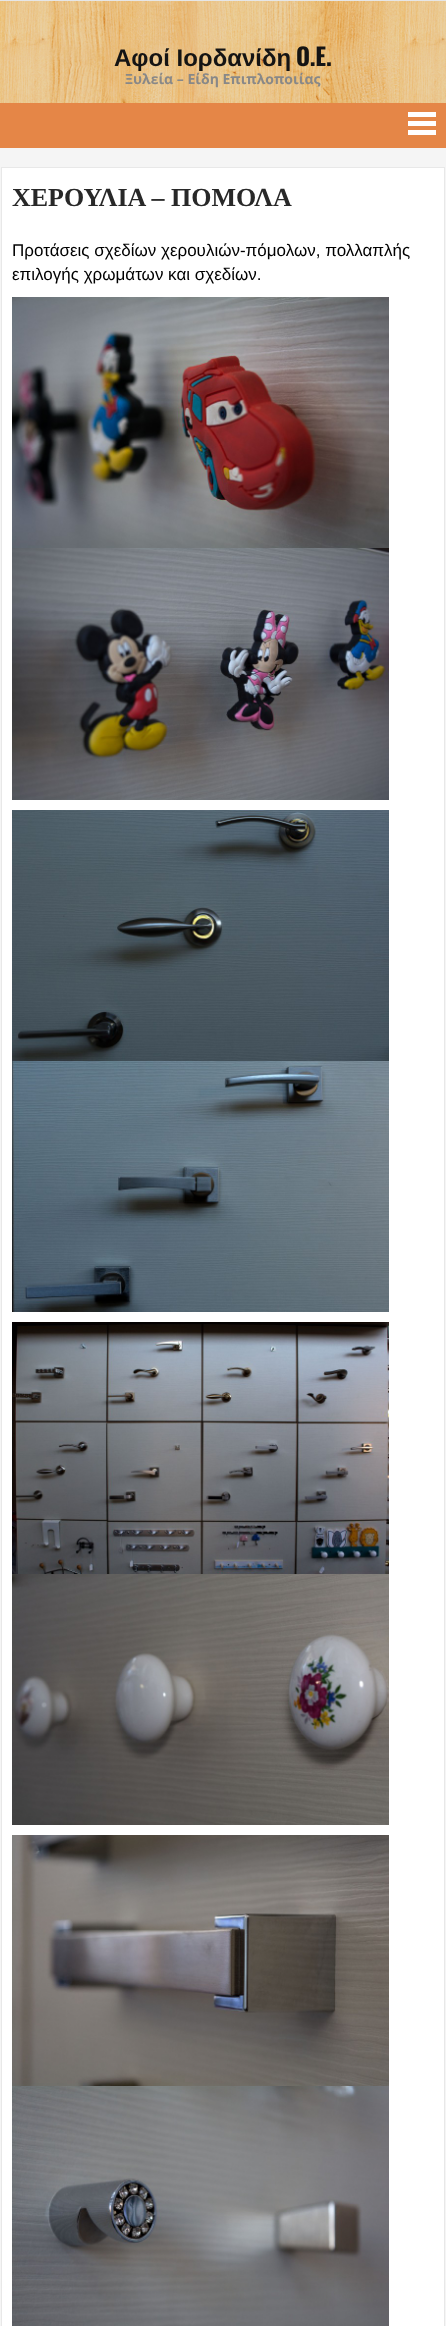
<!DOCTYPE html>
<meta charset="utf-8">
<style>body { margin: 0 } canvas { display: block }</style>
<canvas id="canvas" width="446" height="2326"></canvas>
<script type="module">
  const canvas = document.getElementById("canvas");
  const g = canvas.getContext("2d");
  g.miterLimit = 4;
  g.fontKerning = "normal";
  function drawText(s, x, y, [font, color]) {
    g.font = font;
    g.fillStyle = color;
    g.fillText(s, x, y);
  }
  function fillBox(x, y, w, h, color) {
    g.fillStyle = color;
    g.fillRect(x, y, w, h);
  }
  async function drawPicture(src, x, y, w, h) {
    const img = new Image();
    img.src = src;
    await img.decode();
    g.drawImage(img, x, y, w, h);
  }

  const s1 = ["bold 24px Liberation Sans", "#141414"];
  const s2 = ["bold 24px Oswald", "#141414"];
  const s3 = ["bold 14px Open Sans", "#888888"];
  const s4 = ["bold 26px Liberation Serif", "#282828"];
  const s5 = ["17px Liberation Sans", "#000000"];

  fillBox(0, 0, 446, 2326, "#FFFFFF");
  await drawPicture("pic1.png", 0, 1, 446, 102);
  fillBox(0, 0, 446, 1, "#E6E6E6");
  fillBox(0, 103, 446, 45, "#E58647");
  drawText("Αφοί Ιορδανίδη", 114, 66, s1);
  drawText("O.E.", 296, 66, s2);
  drawText("Ξυλεία – Είδη Επιπλοποιίας", 125, 84, s3);
  fillBox(408, 112, 28, 5, "#FFFFFF");
  fillBox(408, 121, 28, 5, "#FFFFFF");
  fillBox(408, 130, 28, 5, "#FFFFFF");
  fillBox(0, 148, 446, 2178, "#F5F5F5");
  g.fillStyle = "rgba(0, 0, 0, 0.05)";
  g.filter = "blur(0.5px)";
  g.beginPath();
  g.rect(1, 167, 444, 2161);
  g.fill();
  g.filter = "none";
  fillBox(2, 168, 442, 2158, "#FFFFFF");
  drawText("ΧΕΡΟΥΛΙΑ – ΠΟΜΟΛΑ", 12, 206, s4);
  drawText("Προτάσεις σχεδίων χερουλιών-πόμολων, πολλαπλής", 12, 256, s5);
  drawText("επιλογής χρωμάτων και σχεδίων.", 12, 280, s5);
  await drawPicture("pic2.png", 12, 297, 377, 251);
  await drawPicture("pic3.png", 12, 548, 377, 252);
  await drawPicture("pic4.png", 12, 810, 377, 251);
  await drawPicture("pic5.png", 12, 1061, 377, 251);
  await drawPicture("pic6.png", 12, 1322, 377, 252);
  await drawPicture("pic7.png", 12, 1574, 377, 251);
  await drawPicture("pic8.png", 12, 1835, 377, 251);
  await drawPicture("pic9.png", 12, 2086, 377, 240);
</script>
